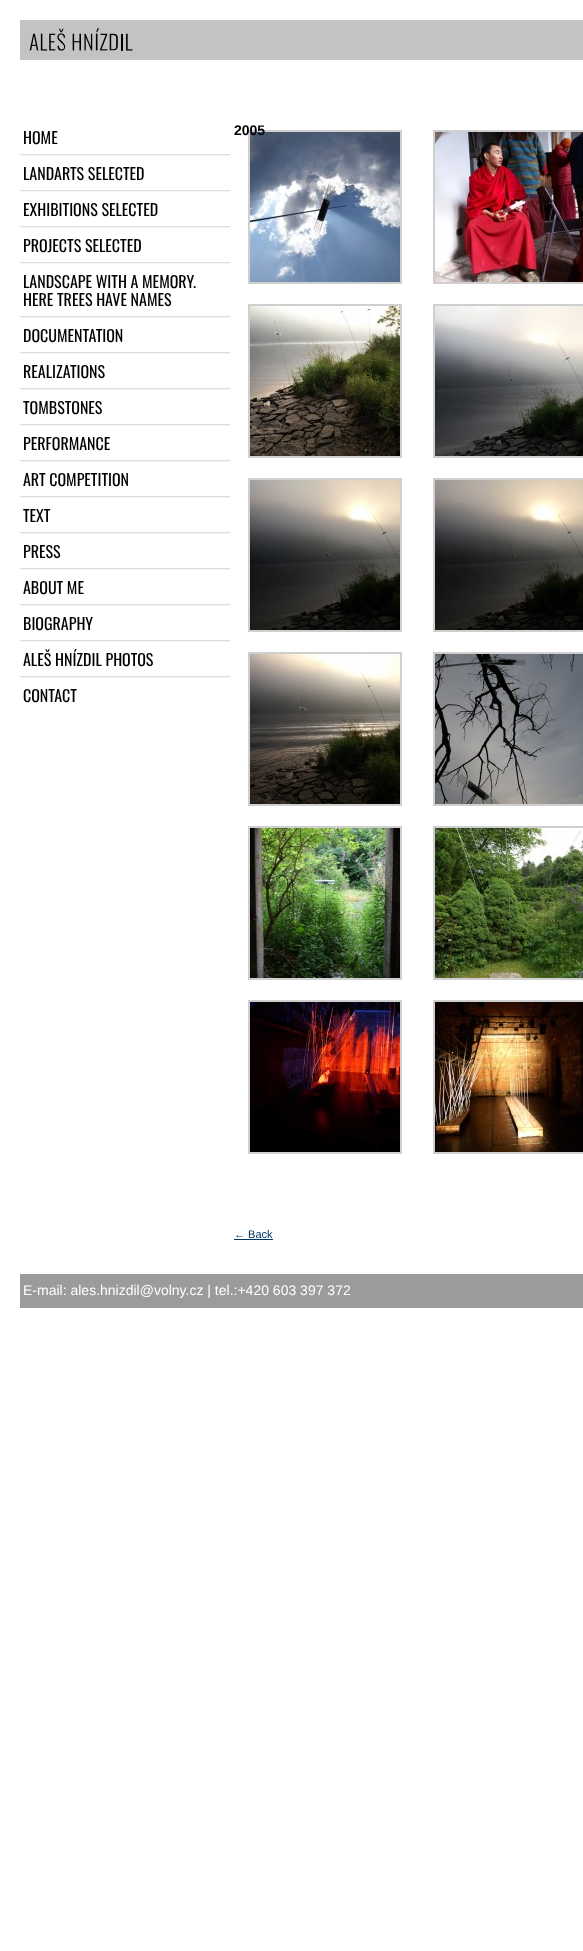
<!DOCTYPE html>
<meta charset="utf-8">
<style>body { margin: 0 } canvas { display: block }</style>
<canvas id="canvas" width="583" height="1951"></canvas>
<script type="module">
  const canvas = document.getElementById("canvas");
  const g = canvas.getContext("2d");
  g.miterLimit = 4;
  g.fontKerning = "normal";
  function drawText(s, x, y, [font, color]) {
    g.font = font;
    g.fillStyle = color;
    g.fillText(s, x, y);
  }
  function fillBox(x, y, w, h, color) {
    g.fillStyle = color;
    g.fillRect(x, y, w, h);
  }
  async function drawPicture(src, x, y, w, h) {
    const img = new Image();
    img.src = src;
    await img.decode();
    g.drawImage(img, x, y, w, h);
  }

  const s1 = ["16px Oswald", "#000000"];
  const s2 = ["bold 14px Liberation Sans", "#000000"];
  const s3 = ["11px Liberation Sans", "#003366"];
  const s4 = ["14px Liberation Sans", "#FFFFFF"];

  fillBox(0, 0, 583, 1951, "#FFFFFF");
  fillBox(20, 20, 563, 40, "#C3C3C3");
  await drawPicture("pic1.png", 29, 28, 104, 23);
  fillBox(20, 154, 210, 1, "#DDDDDD");
  drawText("HOME", 23, 144, s1);
  fillBox(20, 155, 210, 1, "#F5F5F5");
  fillBox(20, 190, 210, 1, "#DDDDDD");
  drawText("LANDARTS SELECTED", 23, 180, s1);
  fillBox(20, 191, 210, 1, "#F5F5F5");
  fillBox(20, 226, 210, 1, "#DDDDDD");
  drawText("EXHIBITIONS SELECTED", 23, 216, s1);
  fillBox(20, 227, 210, 1, "#F5F5F5");
  fillBox(20, 262, 210, 1, "#DDDDDD");
  drawText("PROJECTS SELECTED", 23, 252, s1);
  fillBox(20, 263, 210, 1, "#F5F5F5");
  fillBox(20, 316, 210, 1, "#DDDDDD");
  drawText("LANDSCAPE WITH A MEMORY.", 23, 288, s1);
  drawText("HERE TREES HAVE NAMES", 23, 306, s1);
  fillBox(20, 317, 210, 1, "#F5F5F5");
  fillBox(20, 352, 210, 1, "#DDDDDD");
  drawText("DOCUMENTATION", 23, 342, s1);
  fillBox(20, 353, 210, 1, "#F5F5F5");
  fillBox(20, 388, 210, 1, "#DDDDDD");
  drawText("REALIZATIONS", 23, 378, s1);
  fillBox(20, 389, 210, 1, "#F5F5F5");
  fillBox(20, 424, 210, 1, "#DDDDDD");
  drawText("TOMBSTONES", 23, 414, s1);
  fillBox(20, 425, 210, 1, "#F5F5F5");
  fillBox(20, 460, 210, 1, "#DDDDDD");
  drawText("PERFORMANCE", 23, 450, s1);
  fillBox(20, 461, 210, 1, "#F5F5F5");
  fillBox(20, 496, 210, 1, "#DDDDDD");
  drawText("ART COMPETITION", 23, 486, s1);
  fillBox(20, 497, 210, 1, "#F5F5F5");
  fillBox(20, 532, 210, 1, "#DDDDDD");
  drawText("TEXT", 23, 522, s1);
  fillBox(20, 533, 210, 1, "#F5F5F5");
  fillBox(20, 568, 210, 1, "#DDDDDD");
  drawText("PRESS", 23, 558, s1);
  fillBox(20, 569, 210, 1, "#F5F5F5");
  fillBox(20, 604, 210, 1, "#DDDDDD");
  drawText("ABOUT ME", 23, 594, s1);
  fillBox(20, 605, 210, 1, "#F5F5F5");
  fillBox(20, 640, 210, 1, "#DDDDDD");
  drawText("BIOGRAPHY", 23, 630, s1);
  fillBox(20, 641, 210, 1, "#F5F5F5");
  fillBox(20, 676, 210, 1, "#DDDDDD");
  drawText("ALEŠ HNÍZDIL PHOTOS", 23, 666, s1);
  fillBox(20, 677, 210, 1, "#F5F5F5");
  drawText("CONTACT", 23, 702, s1);
  g.strokeStyle = "#CFCFCF";
  g.lineWidth = 2;
  g.strokeRect(249, 131, 152, 152);
  await drawPicture("pic2.png", 250, 132, 150, 150);
  drawText("2005", 234, 135, s2);
  g.strokeRect(434, 131, 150, 152);
  await drawPicture("pic3.png", 435, 132, 148, 150);
  g.strokeRect(249, 305, 152, 152);
  await drawPicture("pic4.png", 250, 306, 150, 150);
  g.strokeRect(434, 305, 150, 152);
  await drawPicture("pic5.png", 435, 306, 148, 150);
  g.strokeRect(249, 479, 152, 152);
  await drawPicture("pic6.png", 250, 480, 150, 150);
  g.strokeRect(434, 479, 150, 152);
  await drawPicture("pic7.png", 435, 480, 148, 150);
  g.strokeRect(249, 653, 152, 152);
  await drawPicture("pic8.png", 250, 654, 150, 150);
  g.strokeRect(434, 653, 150, 152);
  await drawPicture("pic9.png", 435, 654, 148, 150);
  g.strokeRect(249, 827, 152, 152);
  await drawPicture("pic10.png", 250, 828, 150, 150);
  g.strokeRect(434, 827, 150, 152);
  await drawPicture("pic11.png", 435, 828, 148, 150);
  g.strokeRect(249, 1001, 152, 152);
  await drawPicture("pic12.png", 250, 1002, 150, 150);
  g.strokeRect(434, 1001, 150, 152);
  await drawPicture("pic13.png", 435, 1002, 148, 150);
  drawText("← Back", 234, 1238, s3);
  fillBox(234, 1239, 39, 1, "#003366");
  fillBox(20, 1274, 563, 34, "#9B9B9B");
  drawText("E-mail: ales.hnizdil@volny.cz | tel.:+420 603 397 372", 23, 1295, s4);
</script>
